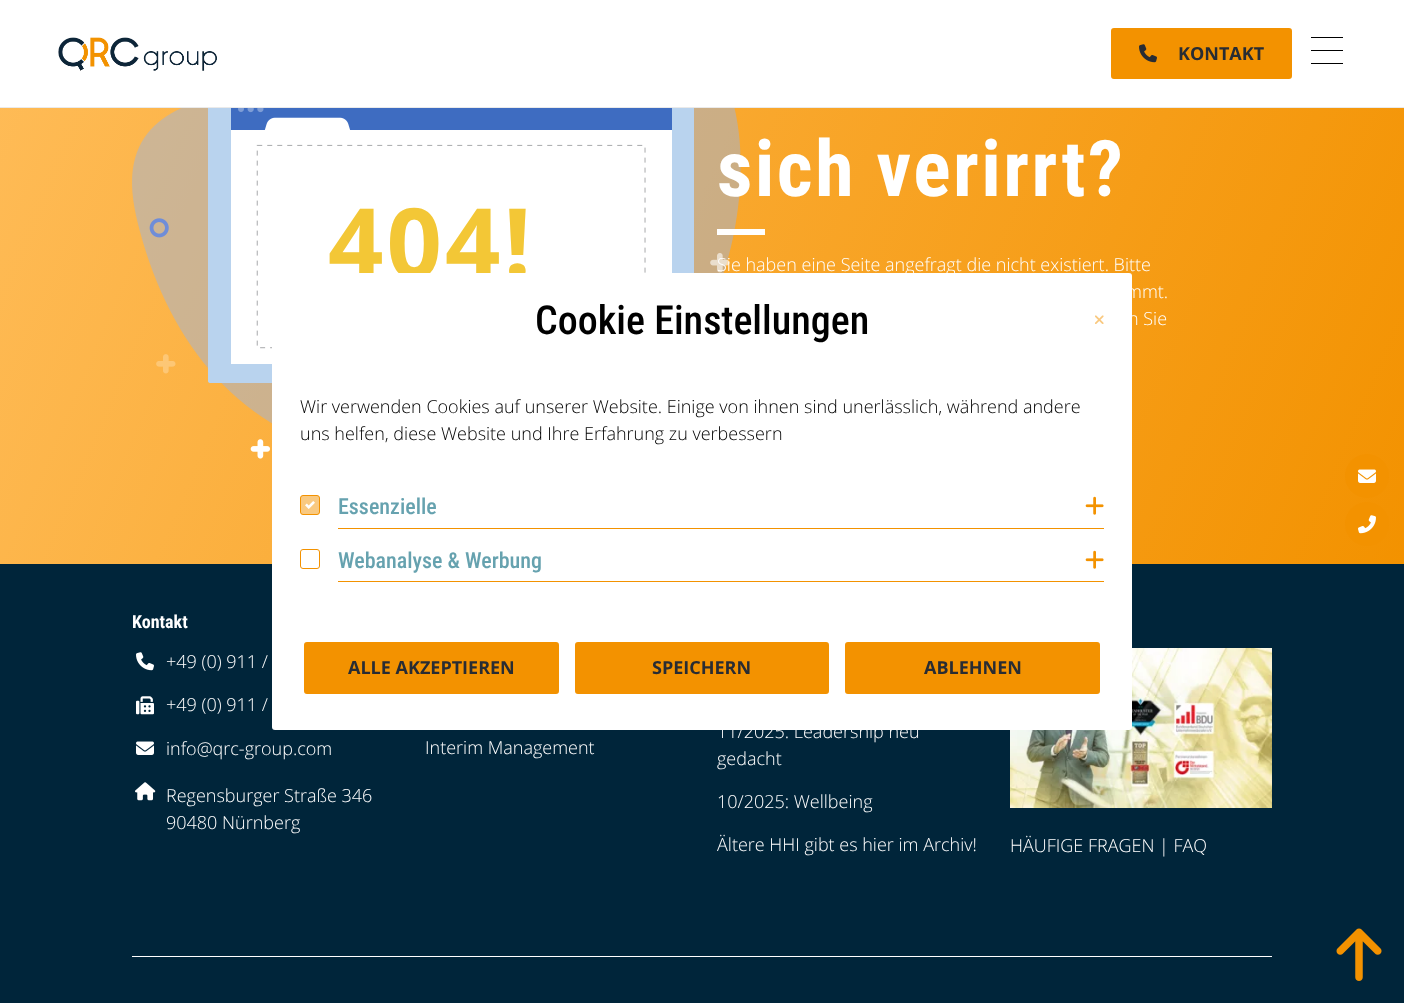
<!DOCTYPE html>
<meta charset="utf-8">
<style>body { margin: 0 } canvas { display: block }</style>
<canvas id="canvas" width="1404" height="1003"></canvas>
<script type="module">
  const canvas = document.getElementById("canvas");
  const g = canvas.getContext("2d");
  g.miterLimit = 4;
  g.fontKerning = "normal";
  function drawText(s, x, y, [font, color]) {
    g.font = font;
    g.fillStyle = color;
    g.fillText(s, x, y);
  }
  function fillBox(x, y, w, h, color) {
    g.fillStyle = color;
    g.fillRect(x, y, w, h);
  }
  function fillRounded(x, y, w, h, r, color) {
    g.fillStyle = color;
    g.beginPath();
    g.roundRect(x, y, w, h, r);
    g.fill();
  }
  async function drawPicture(src, x, y, w, h) {
    const img = new Image();
    img.src = src;
    await img.decode();
    g.drawImage(img, x, y, w, h);
  }
  let gradient;

  const s1 = ["bold 18px Open Sans", "#282C33"];
  const s2 = ["bold 97px Open Sans", "#F3C736"];
  const s3 = ["bold 78px Roboto Condensed", "#FFFFFF"];
  const s4 = ["300 18px Open Sans", "#FFFFFF"];
  const s5 = ["500 40px Roboto Condensed", "#000000"];
  const s6 = ["300 18px Open Sans", "#000000"];
  const s7 = ["500 22px Roboto Condensed", "#66A2AF"];
  const s8 = ["bold 18px Roboto Condensed", "#FFFFFF"];

  fillBox(0, 0, 1404, 1003, "#00253A");
  fillBox(0, 0, 1404, 107, "#FFFFFF");
  fillBox(0, 107, 1404, 1, "#EAEAEA");
  await drawPicture("pic1.png", 58, 37, 159, 34);
  g.fillStyle = "#F39200";
  g.beginPath();
  g.roundRect(1112, 29, 179, 49, 2);
  g.fill();
  g.strokeStyle = "#F39200";
  g.lineWidth = 2;
  g.stroke();
  await drawPicture("pic2.png", 1139, 44, 18, 19);
  drawText("KONTAKT", 1178, 60, s1);
  fillBox(1311, 37, 32, 1, "#000000");
  fillBox(1311, 50, 32, 1, "#000000");
  fillBox(1311, 63, 32, 1, "#000000");
  gradient = g.createLinearGradient(-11, -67, 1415, 539);
  gradient.addColorStop(0, "#FFBD5A");
  gradient.addColorStop(1, "#F39200");
  g.fillStyle = gradient;
  g.fillRect(0, 108, 1404, 456);
  await drawPicture("pic3.png", 132, 108, 609, 351);
  g.letterSpacing = "3px";
  drawText("404!", 328, 278, s2);
  g.letterSpacing = "2.4px";
  drawText("sich verirrt?", 717, 196, s3);
  fillBox(717, 229, 48, 6, "#FFFFFF");
  g.letterSpacing = "0px";
  drawText("Sie haben eine Seite angefragt die nicht existiert. Bitte", 717, 271, s4);
  drawText("mmt.", 1126, 298, s4);
  drawText("n Sie", 1128, 325, s4);
  await drawPicture("pic13.png", 1010, 648, 262, 160);
  fillRounded(272, 273, 860, 457, 3, "#FFFFFF");
  drawText("Cookie Einstellungen", 535, 334, s5);
  await drawPicture("pic4.png", 1095, 315, 9, 9);
  drawText("Wir verwenden Cookies auf unserer Website. Einige von ihnen sind unerlässlich, während andere", 300, 413, s6);
  drawText("uns helfen, diese Website und Ihre Erfahrung zu verbessern", 300, 440, s6);
  g.fillStyle = "#F9C980";
  g.beginPath();
  g.roundRect(300.5, 495.5, 19, 19, 2.5);
  g.fill();
  g.lineWidth = 1;
  g.stroke();
  await drawPicture("pic5.png", 305, 501, 10, 8);
  fillBox(338, 528, 766, 1, "#F39200");
  drawText("Essenzielle", 338, 514, s7);
  await drawPicture("pic6.png", 1085, 496, 19, 19);
  g.beginPath();
  g.roundRect(300.5, 549.5, 19, 19, 2.5);
  g.stroke();
  fillBox(338, 581, 766, 1, "#F39200");
  drawText("Webanalyse & Werbung", 338, 568, s7);
  await drawPicture("pic6.png", 1085, 550, 19, 19);
  g.fillStyle = "#F39200";
  g.beginPath();
  g.roundRect(305, 643, 253, 50, 2);
  g.fill();
  g.lineWidth = 2;
  g.stroke();
  drawText("ALLE AKZEPTIEREN", 348, 674, s1);
  g.fillStyle = "#F39200";
  g.beginPath();
  g.roundRect(576, 643, 252, 50, 2);
  g.fill();
  g.stroke();
  drawText("SPEICHERN", 652, 674, s1);
  g.fillStyle = "#F39200";
  g.beginPath();
  g.roundRect(846, 643, 253, 50, 2);
  g.fill();
  g.stroke();
  drawText("ABLEHNEN", 924, 674, s1);
  g.fillStyle = "#F39200";
  g.beginPath();
  g.arc(1367, 476, 22, 0, Math.PI * 2);
  g.fill();
  await drawPicture("pic7.png", 1358, 469, 18, 14);
  g.beginPath();
  g.arc(1367, 524, 22, 0, Math.PI * 2);
  g.fill();
  await drawPicture("pic8.png", 1358, 515, 18, 19);
  drawText("Kontakt", 132, 628, s8);
  await drawPicture("pic9.png", 136, 652, 18, 19);
  drawText("+49 (0) 911 /", 166, 668, s4);
  await drawPicture("pic10.png", 136, 696, 18, 19);
  drawText("+49 (0) 911 /", 166, 711, s4);
  await drawPicture("pic11.png", 136, 741, 18, 14);
  drawText("info@qrc-group.com", 166, 755, s4);
  await drawPicture("pic12.png", 135, 782, 21, 19);
  drawText("Regensburger Straße 346", 166, 802, s4);
  drawText("90480 Nürnberg", 166, 829, s4);
  drawText("Interim Management", 425, 754, s4);
  drawText("11/2025: Leadership neu", 717, 738, s4);
  drawText("gedacht", 717, 765, s4);
  drawText("10/2025: Wellbeing", 717, 808, s4);
  drawText("Ältere HHI gibt es hier im Archiv!", 717, 851, s4);
  drawText("HÄUFIGE FRAGEN | FAQ", 1010, 852, s4);
  fillBox(132, 956, 1140, 1, "#FFFFFF");
  await drawPicture("pic14.png", 1336, 928, 46, 53);
</script>
